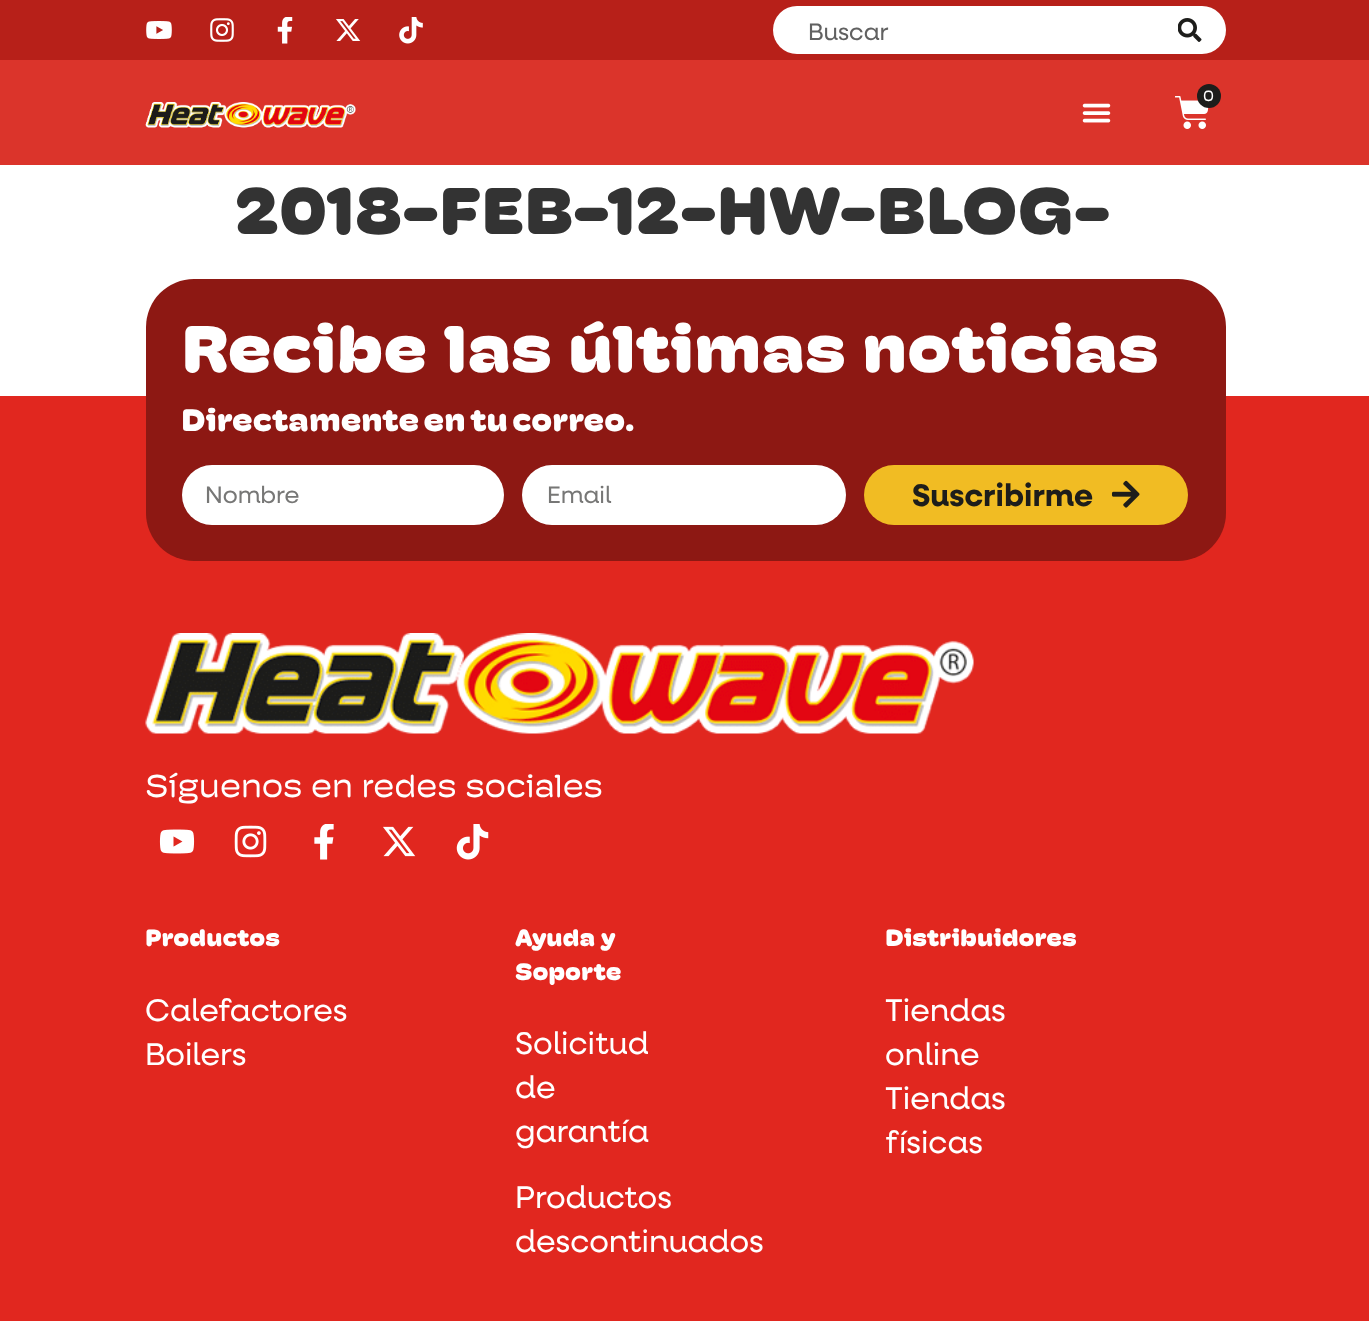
<!DOCTYPE html>
<meta charset="utf-8">
<style>body { margin: 0 } canvas { display: block }</style>
<canvas id="canvas" width="1369" height="1321"></canvas>
<script type="module">
  const canvas = document.getElementById("canvas");
  const g = canvas.getContext("2d");
  g.miterLimit = 4;
  g.fontKerning = "normal";
  function drawText(s, x, y, [font, color]) {
    g.font = font;
    g.fillStyle = color;
    g.fillText(s, x, y);
  }
  function fillBox(x, y, w, h, color) {
    g.fillStyle = color;
    g.fillRect(x, y, w, h);
  }
  function fillRounded(x, y, w, h, r, color) {
    g.fillStyle = color;
    g.beginPath();
    g.roundRect(x, y, w, h, r);
    g.fill();
  }
  async function drawPicture(src, x, y, w, h) {
    const img = new Image();
    img.src = src;
    await img.decode();
    g.drawImage(img, x, y, w, h);
  }

  const s1 = ["24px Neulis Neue", "#616161"];
  const s2 = ["15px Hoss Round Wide", "#FFFFFF"];
  const s3 = ["900 66.75px Hoss Round Wide", "#333333"];
  const s4 = ["900 66.75px Hoss Round Wide", "#FFFFFF"];
  const s5 = ["900 31.5px Hoss Round Wide", "#FFFFFF"];
  const s6 = ["24px Neulis Neue", "#777776"];
  const s7 = ["bold 31.5px Neulis Neue", "#1D1D1B"];
  const s8 = ["32.1px Hoss Round Wide", "#FFFFFF"];
  const s9 = ["900 24px Hoss Round Wide", "#FFFFFF"];
  const s10 = ["31.5px Neulis Neue", "#FFFFFF"];

  fillBox(0, 0, 1369, 1321, "#FFFFFF");
  fillBox(0, 0, 1369, 60, "#B72019");
  await drawPicture("pic1.png", 146, 21, 26, 18);
  await drawPicture("pic2.png", 210, 18, 24, 24);
  await drawPicture("pic3.png", 277, 17, 16, 27);
  await drawPicture("pic4.png", 336, 19, 25, 22);
  await drawPicture("pic5.png", 399, 17, 24, 27);
  g.fillStyle = "#FFFFFF";
  g.beginPath();
  g.roundRect(773, 6, 393, 48, [24, 0, 0, 24]);
  g.fill();
  drawText("Buscar", 808, 40, s1);
  g.fillStyle = "#FFFFFF";
  g.beginPath();
  g.roundRect(1166, 6, 60, 48, [0, 24, 24, 0]);
  g.fill();
  await drawPicture("pic6.png", 1178, 18, 24, 24);
  fillBox(0, 60, 1369, 105, "#DB342B");
  await drawPicture("pic7.png", 1175, 96, 34, 33);
  g.fillStyle = "#1D1D1B";
  g.beginPath();
  g.arc(1209, 96, 12, 0, Math.PI * 2);
  g.fill();
  drawText("0", 1203, 101, s2);
  await drawPicture("pic8.png", 1082, 103, 29, 20);
  await drawPicture("pic9.png", 145, 102, 211, 26);
  drawText("2018-FEB-12-HW-BLOG-", 235, 234, s3);
  fillBox(0, 396, 1369, 925, "#E1271F");
  fillRounded(146, 279, 1080, 282, 48, "#8D1813");
  drawText("Recibe las últimas noticias", 181, 372, s4);
  g.wordSpacing = "-3px";
  drawText("Directamente en tu correo.", 181, 431, s5);
  fillRounded(182, 465, 322, 60, 30, "#FFFFFF");
  g.wordSpacing = "0px";
  drawText("Nombre", 205, 503, s6);
  fillRounded(522, 465, 324, 60, 30, "#FFFFFF");
  drawText("Email", 547, 503, s6);
  fillRounded(864, 465, 324, 60, 30, "#F1BC23");
  drawText("Suscribirme", 912, 506, s7);
  await drawPicture("pic10.png", 1111, 480, 29, 28);
  await drawPicture("pic11.png", 145, 633, 829, 101);
  drawText("Síguenos en redes sociales", 145, 797, s8);
  await drawPicture("pic12.png", 159, 829, 36, 25);
  await drawPicture("pic13.png", 234, 825, 33, 33);
  await drawPicture("pic14.png", 314, 824, 20, 36);
  await drawPicture("pic15.png", 383, 826, 33, 31);
  await drawPicture("pic16.png", 456, 824, 33, 36);
  drawText("Productos", 145, 946, s9);
  drawText("Calefactores", 145, 1021, s10);
  drawText("Boilers", 145, 1065, s10);
  drawText("Ayuda y", 515, 946, s9);
  drawText("Soporte", 515, 980, s9);
  drawText("Solicitud", 515, 1054, s10);
  drawText("de", 515, 1098, s10);
  drawText("garantía", 515, 1142, s10);
  drawText("Productos", 515, 1208, s10);
  drawText("descontinuados", 515, 1252, s10);
  drawText("Distribuidores", 885, 946, s9);
  drawText("Tiendas", 885, 1021, s10);
  drawText("online", 885, 1065, s10);
  drawText("Tiendas", 885, 1109, s10);
  drawText("físicas", 885, 1153, s10);
</script>
